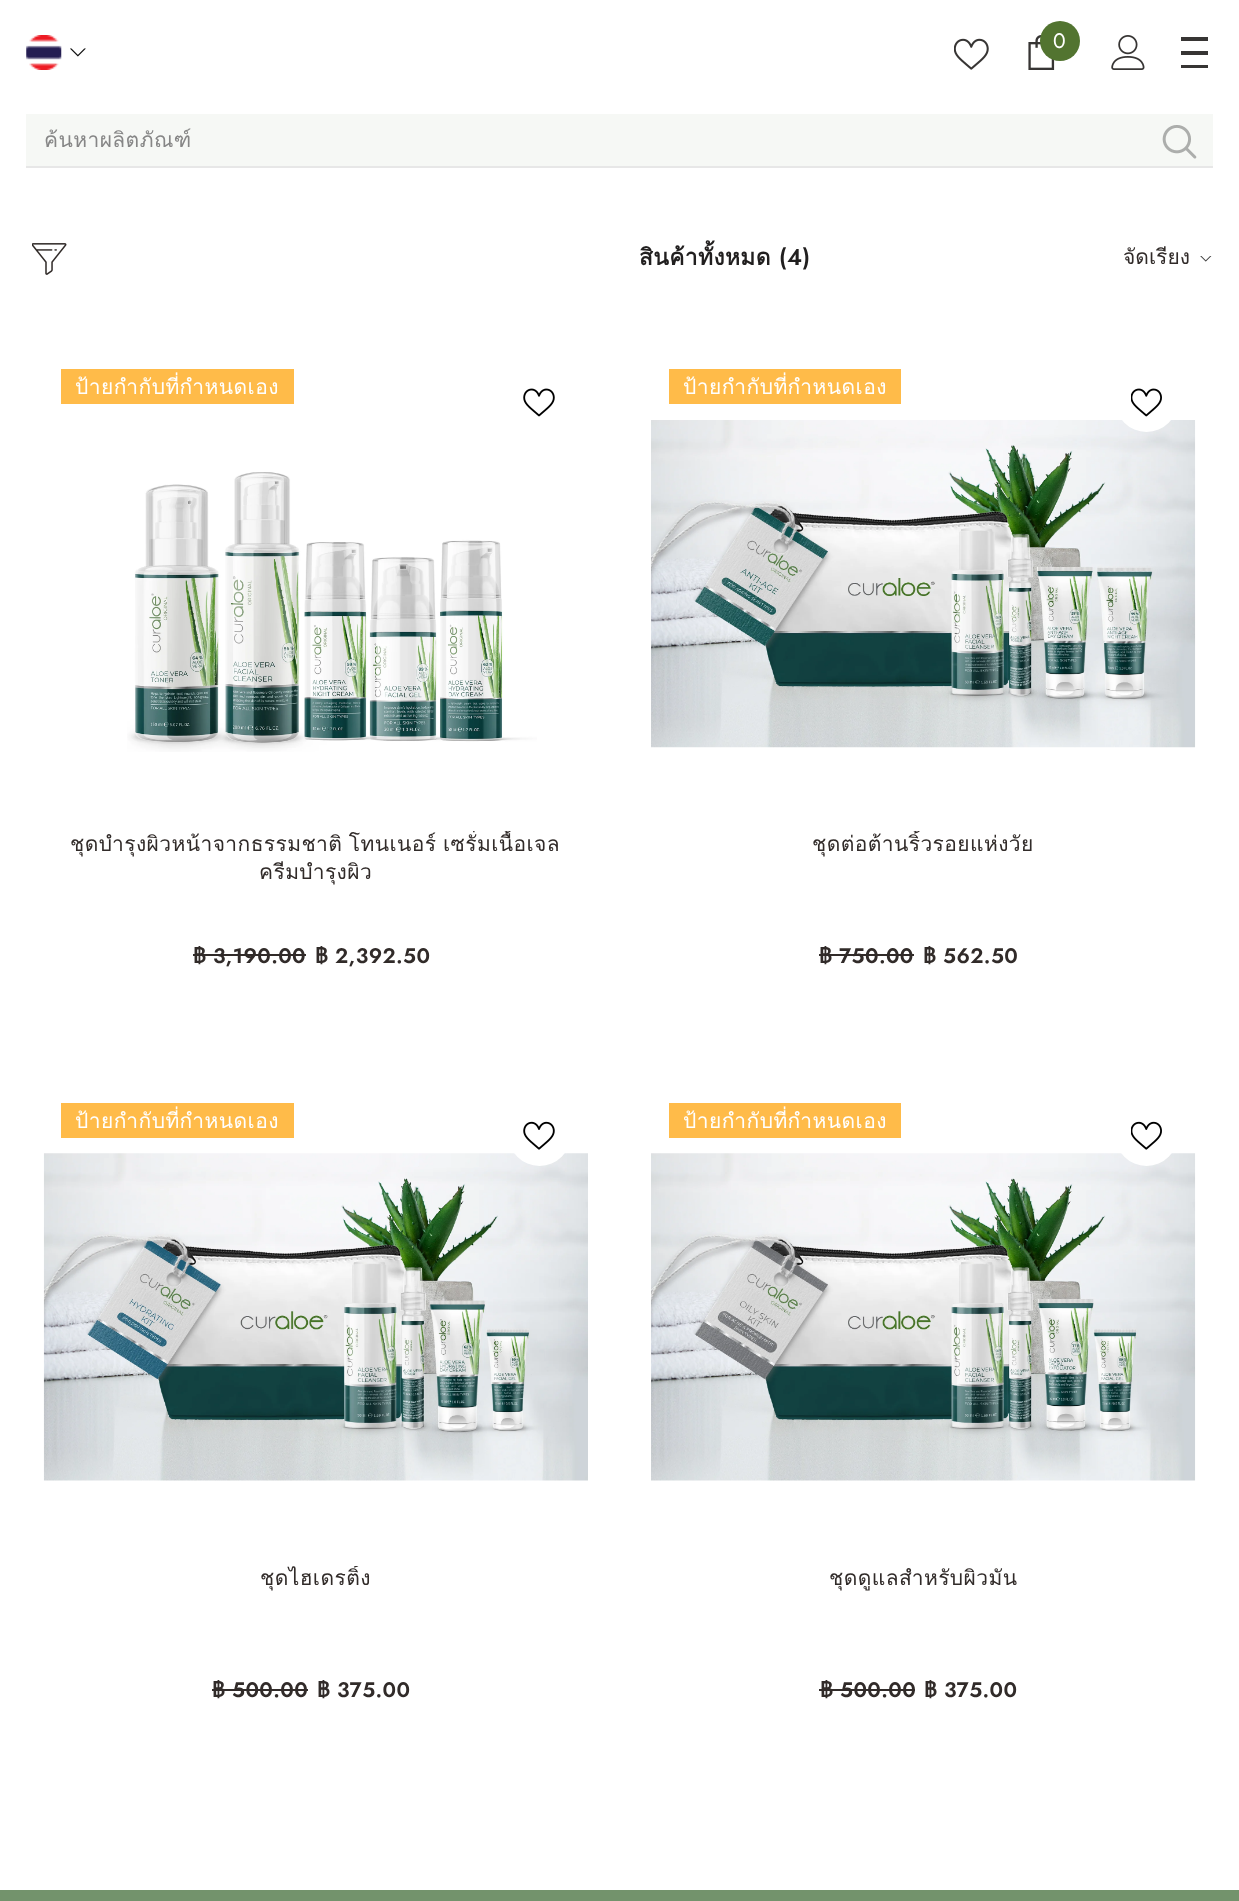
<!DOCTYPE html>
<meta charset="utf-8">
<style>body { margin: 0 } canvas { display: block }</style>
<canvas id="canvas" width="1239" height="1901"></canvas>
<script type="module">
  const canvas = document.getElementById("canvas");
  const g = canvas.getContext("2d");
  g.miterLimit = 4;
  g.fontKerning = "normal";
  function drawText(s, x, y, [font, color]) {
    g.font = font;
    g.fillStyle = color;
    g.fillText(s, x, y);
  }
  function fillBox(x, y, w, h, color) {
    g.fillStyle = color;
    g.fillRect(x, y, w, h);
  }
  async function drawPicture(src, x, y, w, h) {
    const img = new Image();
    img.src = src;
    await img.decode();
    g.drawImage(img, x, y, w, h);
  }

  const s1 = ["21px Jost", "#FFFFFF"];
  const s2 = ["21px Loma", "#868686"];
  const s3 = ["bold 22.75px Loma", "#211F1F"];
  const s4 = ["600 22.75px Jost", "#211F1F"];
  const s5 = ["21px Loma", "#312B29"];
  const s6 = ["21px Loma", "#FFFFFF"];
  const s7 = ["bold 21px Loma", "#312B29"];
  const s8 = ["600 21px Jost", "#312B29"];

  fillBox(0, 0, 1239, 1901, "#FFFFFF");
  await drawPicture("pic1.png", 26, 35, 36, 35);
  await drawPicture("pic2.png", 70, 48, 16, 9);
  await drawPicture("pic3.png", 954, 38, 35, 32);
  await drawPicture("pic4.png", 1028, 35, 27, 35);
  g.fillStyle = "#527430";
  g.beginPath();
  g.arc(1060, 41, 20, 0, Math.PI * 2);
  g.fill();
  drawText("0", 1053, 48, s1);
  await drawPicture("pic5.png", 1111, 35, 34, 35);
  fillBox(1181, 51, 27, 4, "#373534");
  fillBox(1181, 37, 27, 4, "#373534");
  fillBox(1181, 65, 27, 3, "#373534");
  fillBox(26, 114, 1187, 52, "#F6F8F5");
  fillBox(26, 166, 1187, 2, "#E7E7E7");
  g.save();
  g.beginPath();
  g.rect(44, 123, 1083, 33);
  g.clip();
  g.letterSpacing = "0.4px";
  drawText("ค้นหาผลิตภัณฑ์", 44, 147, s2);
  g.restore();
  await drawPicture("pic6.png", 1162, 125, 35, 34);
  await drawPicture("pic7.png", 32, 243, 35, 32);
  g.letterSpacing = "0.4px";
  drawText("สินค้าทั้งหมด", 639, 265, s3);
  drawText("(4)", 779, 265, s4);
  g.letterSpacing = "0px";
  drawText("จัดเรียง", 1123, 264, s5);
  await drawPicture("pic8.png", 1200, 256, 12, 6);
  fillBox(61, 369, 233, 35, "#FFBB49");
  g.letterSpacing = "0.4px";
  drawText("ป้ายกำกับที่กำหนดเอง", 75, 394, s6);
  await drawPicture("pic9.png", 523, 388, 32, 29);
  await drawPicture("pic10.png", 127, 472, 410, 280);
  g.save();
  g.beginPath();
  g.rect(61, 831, 510, 88);
  g.clip();
  g.wordSpacing = "-1px";
  drawText("ชุดบำรุงผิวหน้าจากธรรมชาติ โทนเนอร์ เซรั่มเนื้อเจล", 70, 851, s5);
  g.restore();
  drawText("ครีมบำรุงผิว", 259, 879, s5);
  drawText("฿", 193, 963, s7);
  fillBox(193, 954, 113, 2, "#312B29");
  drawText("3,190.00", 213, 963, s8);
  drawText("฿", 315, 963, s7);
  drawText("2,392.50", 335, 963, s8);
  fillBox(669, 369, 232, 35, "#FFBB49");
  drawText("ป้ายกำกับที่กำหนดเอง", 683, 394, s6);
  await drawPicture("pic12.png", 651, 420, 545, 328);
  g.beginPath();
  g.arc(1146.5, 400.5, 31.5, 0, Math.PI * 2);
  g.fill();
  await drawPicture("pic11.png", 1131, 388, 31, 29);
  g.save();
  g.beginPath();
  g.rect(669, 831, 509, 88);
  g.clip();
  drawText("ชุดต่อต้านริ้วรอยแห่งวัย", 812, 851, s5);
  g.restore();
  drawText("฿", 819, 963, s7);
  fillBox(819, 954, 95, 2, "#312B29");
  drawText("750.00", 839, 963, s8);
  drawText("฿", 923, 963, s7);
  drawText("562.50", 943, 963, s8);
  fillBox(61, 1103, 233, 35, "#FFBB49");
  drawText("ป้ายกำกับที่กำหนดเอง", 75, 1128, s6);
  await drawPicture("pic14.png", 43, 1153, 545, 328);
  g.beginPath();
  g.arc(539.5, 1134.5, 31.5, 0, Math.PI * 2);
  g.fill();
  await drawPicture("pic13.png", 523, 1121, 32, 29);
  g.save();
  g.beginPath();
  g.rect(61, 1566, 510, 88);
  g.clip();
  drawText("ชุดไฮเดรติ้ง", 260, 1585, s5);
  g.restore();
  drawText("฿", 212, 1697, s7);
  drawText("500.00", 232, 1697, s8);
  fillBox(212, 1689, 96, 2, "#312B29");
  drawText("฿", 317, 1697, s7);
  drawText("375.00", 337, 1697, s8);
  fillBox(669, 1103, 232, 35, "#FFBB49");
  drawText("ป้ายกำกับที่กำหนดเอง", 683, 1128, s6);
  await drawPicture("pic16.png", 651, 1153, 545, 328);
  g.beginPath();
  g.arc(1146.5, 1134.5, 31.5, 0, Math.PI * 2);
  g.fill();
  await drawPicture("pic15.png", 1131, 1121, 31, 29);
  drawText("ชุดดูแลสำหรับผิวมัน", 829, 1585, s5);
  drawText("฿", 820, 1697, s7);
  drawText("500.00", 840, 1697, s8);
  fillBox(819, 1689, 96, 2, "#312B29");
  drawText("฿", 924, 1697, s7);
  drawText("375.00", 944, 1697, s8);
  fillBox(0, 1890, 1239, 11, "#73936C");
</script>
